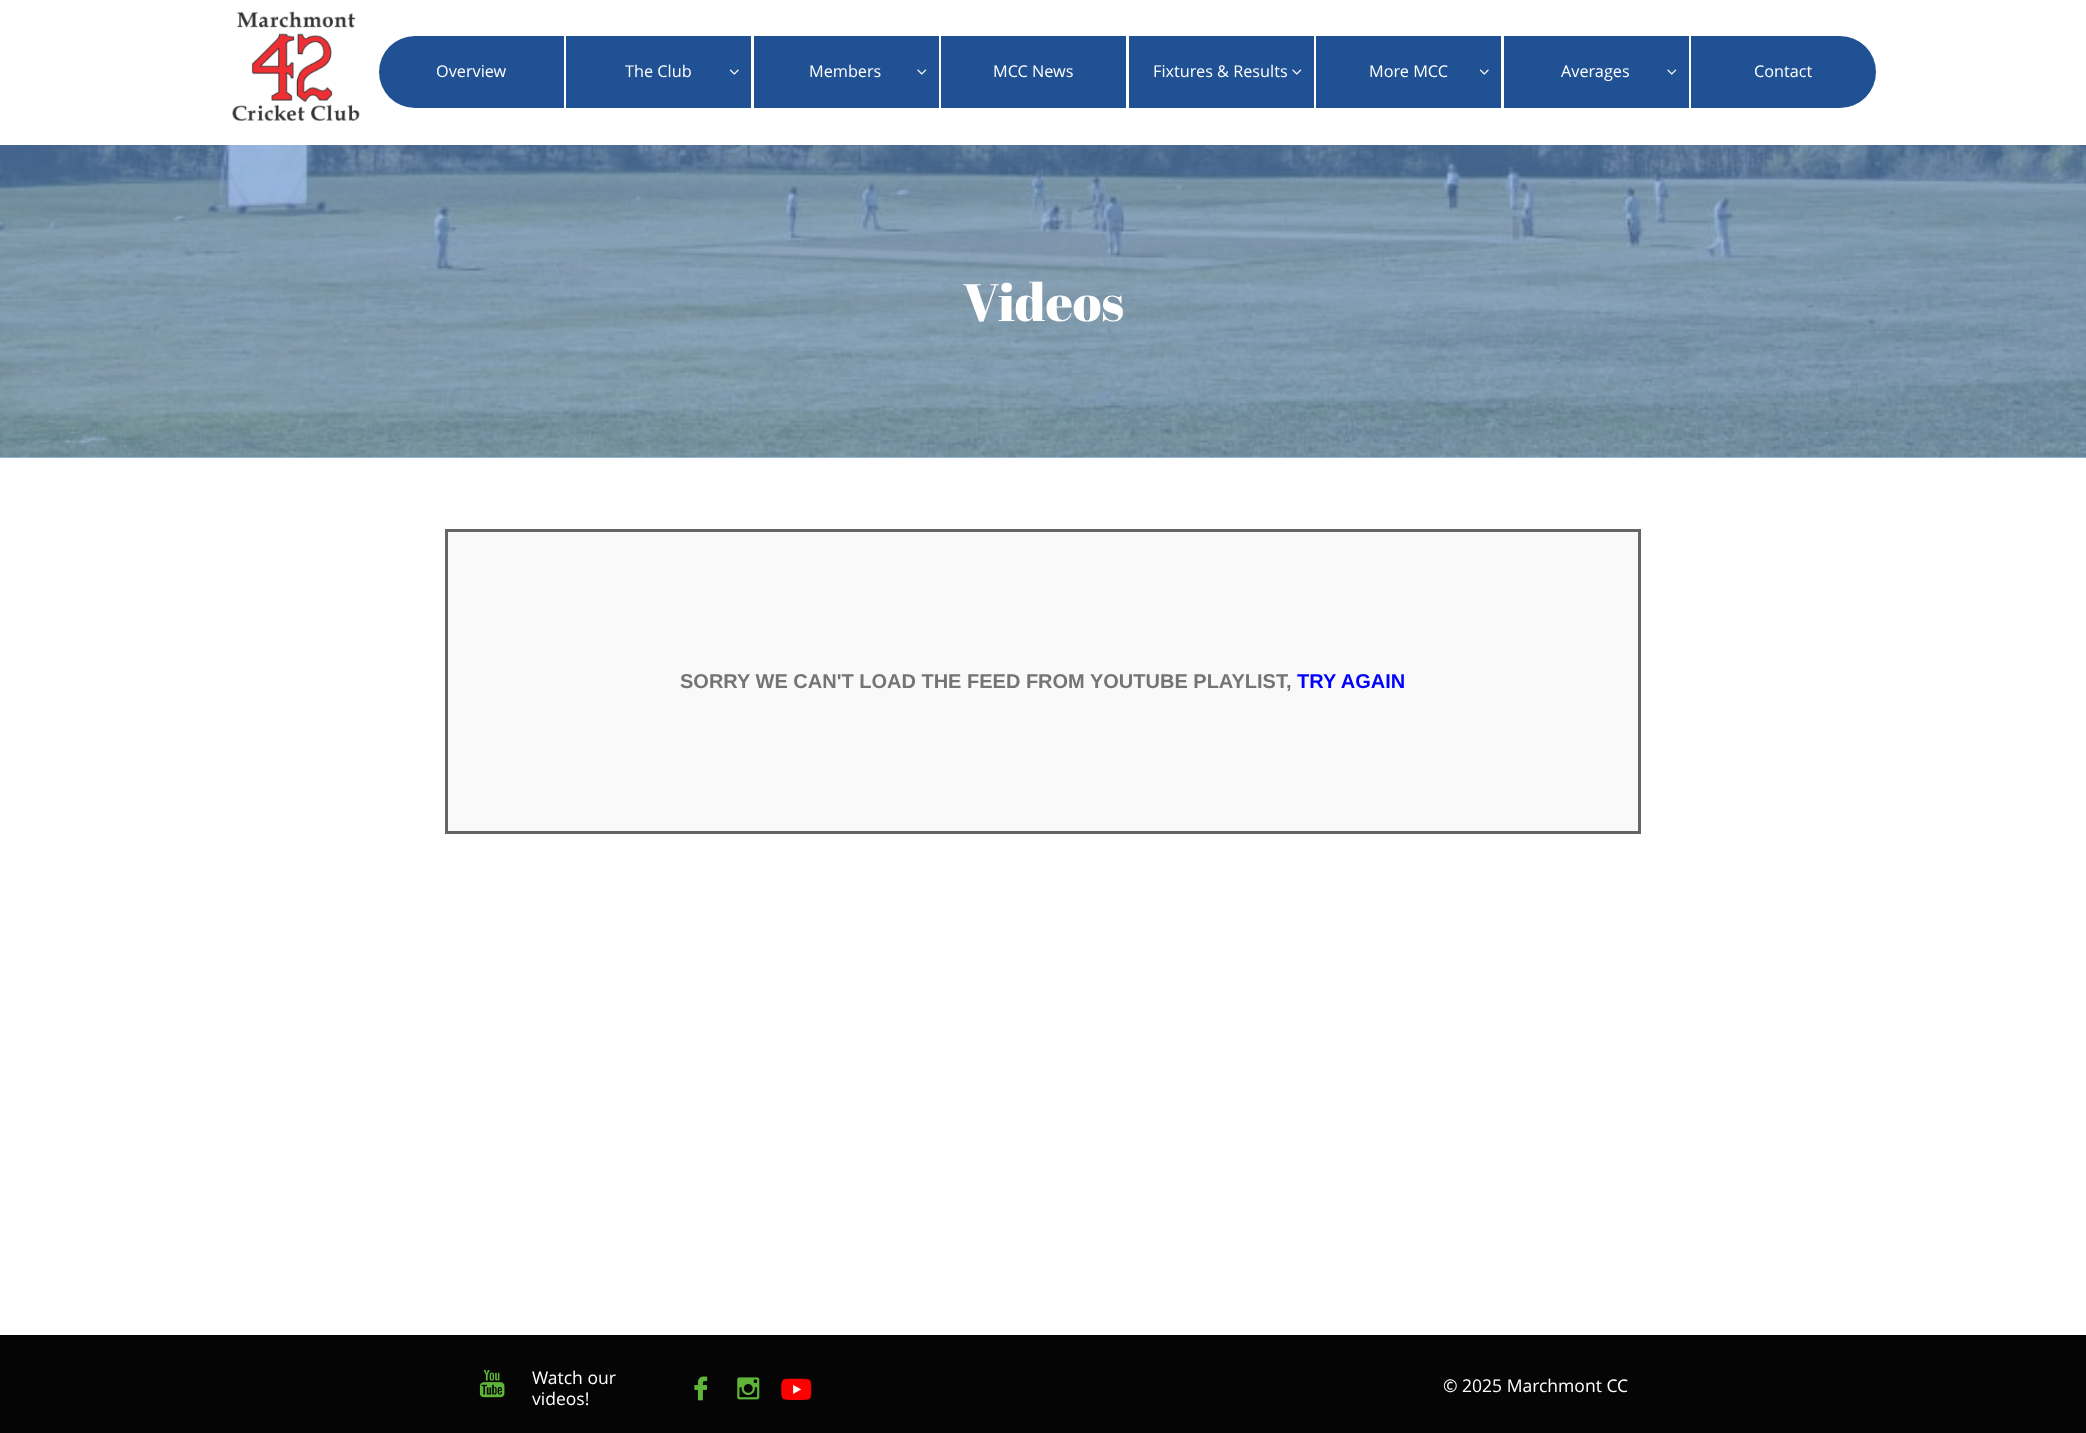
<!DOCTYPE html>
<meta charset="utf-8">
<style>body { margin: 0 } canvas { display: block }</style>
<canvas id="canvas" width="2086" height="1433"></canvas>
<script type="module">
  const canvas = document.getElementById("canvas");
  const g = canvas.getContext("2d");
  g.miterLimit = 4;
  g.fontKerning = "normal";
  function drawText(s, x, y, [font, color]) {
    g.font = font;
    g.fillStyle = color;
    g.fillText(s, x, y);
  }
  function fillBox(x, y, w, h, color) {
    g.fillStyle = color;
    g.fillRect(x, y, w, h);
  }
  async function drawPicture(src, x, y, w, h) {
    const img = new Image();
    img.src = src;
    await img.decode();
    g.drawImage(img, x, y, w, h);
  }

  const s1 = ["16.25px Open Sans", "#FFFFFF"];
  const s2 = ["52.5px Abril Fatface", "#FFFFFF"];
  const s3 = ["bold 20px Liberation Sans", "#747474"];
  const s4 = ["bold 20px Liberation Sans", "#0000FF"];
  const s5 = ["17.5px Open Sans", "#FFFFFF"];

  fillBox(0, 0, 2086, 1433, "#FFFFFF");
  fillBox(0, 145, 2086, 313, "#A2C2EC");
  await drawPicture("pic1.png", 232, 11, 128, 110);
  g.fillStyle = "#1F5194";
  g.beginPath();
  g.roundRect(379, 36, 185, 72, [36, 0, 0, 36]);
  g.fill();
  drawText("Overview", 436, 77, s1);
  fillBox(566, 36, 185, 72, "#1F5194");
  drawText("The Club", 625, 77, s1);
  await drawPicture("pic2.png", 729, 69, 10, 6);
  fillBox(754, 36, 185, 72, "#1F5194");
  drawText("Members", 809, 77, s1);
  await drawPicture("pic3.png", 917, 69, 10, 6);
  fillBox(941, 36, 185, 72, "#1F5194");
  drawText("MCC News", 993, 77, s1);
  fillBox(1129, 36, 185, 72, "#1F5194");
  drawText("Fixtures & Results", 1153, 77, s1);
  await drawPicture("pic3.png", 1292, 69, 10, 6);
  fillBox(1316, 36, 185, 72, "#1F5194");
  drawText("More MCC", 1369, 77, s1);
  await drawPicture("pic2.png", 1479, 69, 10, 6);
  fillBox(1504, 36, 185, 72, "#1F5194");
  drawText("Averages", 1561, 77, s1);
  await drawPicture("pic3.png", 1667, 69, 10, 6);
  g.fillStyle = "#1F5194";
  g.beginPath();
  g.roundRect(1691, 36, 185, 72, [0, 36, 36, 0]);
  g.fill();
  drawText("Contact", 1754, 77, s1);
  await drawPicture("pic4.png", 0, 145, 2086, 313);
  drawText("Videos", 963, 321, s2);
  g.fillStyle = "#F9F9F9";
  g.beginPath();
  g.rect(446.5, 530.5, 1193, 302);
  g.fill();
  g.strokeStyle = "#656565";
  g.lineWidth = 3;
  g.stroke();
  drawText("SORRY WE CAN'T LOAD THE FEED FROM YOUTUBE PLAYLIST,", 680, 688, s3);
  drawText("TRY AGAIN", 1297, 688, s4);
  fillBox(0, 1335, 2086, 98, "#050505");
  await drawPicture("pic5.png", 479, 1370, 26, 28);
  drawText("Watch our", 532, 1384, s5);
  drawText("videos!", 532, 1405, s5);
  await drawPicture("pic6.png", 694, 1376, 14, 25);
  await drawPicture("pic7.png", 737, 1377, 23, 23);
  await drawPicture("pic8.png", 781, 1378, 31, 22);
  drawText("© 2025 Marchmont CC", 1443, 1392, s5);
</script>
